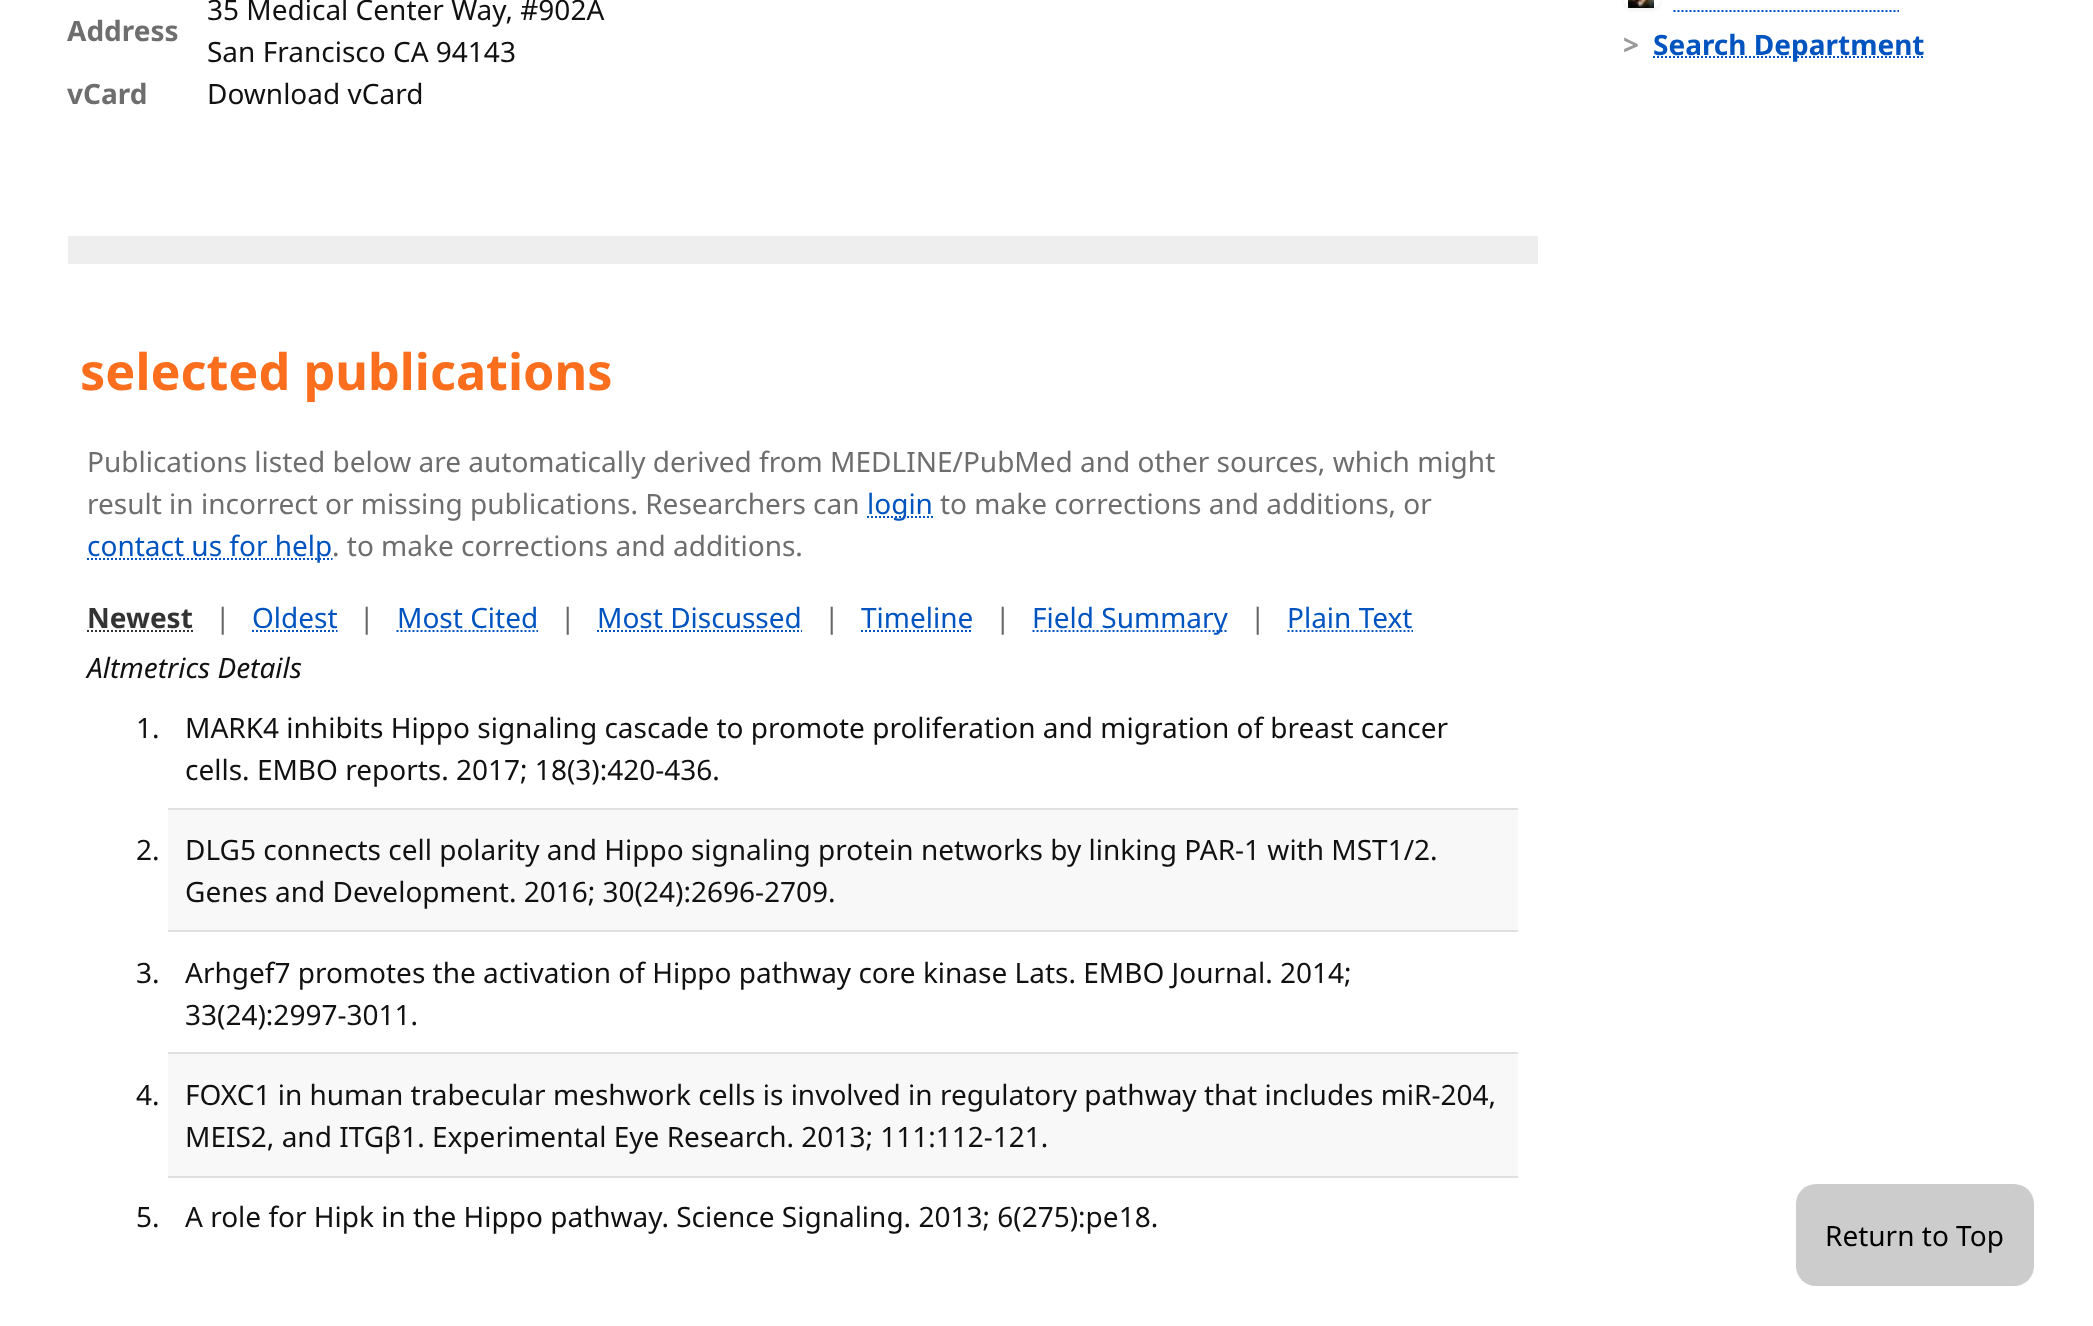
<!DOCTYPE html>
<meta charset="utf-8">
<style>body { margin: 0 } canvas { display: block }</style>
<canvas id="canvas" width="2093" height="1326"></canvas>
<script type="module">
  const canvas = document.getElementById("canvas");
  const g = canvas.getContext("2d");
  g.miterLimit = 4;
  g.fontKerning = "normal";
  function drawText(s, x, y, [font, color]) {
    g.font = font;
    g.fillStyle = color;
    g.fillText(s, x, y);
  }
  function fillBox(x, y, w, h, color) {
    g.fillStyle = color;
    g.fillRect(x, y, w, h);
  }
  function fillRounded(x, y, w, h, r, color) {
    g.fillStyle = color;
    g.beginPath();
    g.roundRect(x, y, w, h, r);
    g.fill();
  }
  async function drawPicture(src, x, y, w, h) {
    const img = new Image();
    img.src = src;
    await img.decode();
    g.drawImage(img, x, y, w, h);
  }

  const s1 = ["bold 28px Noto Sans", "#6E6E6E"];
  const s2 = ["28px Noto Sans", "#111111"];
  const s3 = ["bold 50.4px Noto Sans", "#FA6E1E"];
  const s4 = ["28px Noto Sans", "#6E6E6E"];
  const s5 = ["28px Noto Sans", "#0054C0"];
  const s6 = ["bold 28px Noto Sans", "#333333"];
  const s7 = ["28px Noto Sans", "#666666"];
  const s8 = ["italic 28px Noto Sans", "#111111"];
  const s9 = ["bold 28px Noto Sans", "#999999"];
  const s10 = ["bold 28px Noto Sans", "#0054C0"];
  const s11 = ["28px Noto Sans", "#000000"];

  fillBox(0, 0, 2093, 1326, "#FFFFFF");
  drawText("Address", 67, 41, s1);
  drawText("35 Medical Center Way, #902A", 207, 20, s2);
  drawText("San Francisco CA 94143", 207, 62, s2);
  drawText("vCard", 67, 104, s1);
  drawText("Download vCard", 207, 104, s2);
  fillBox(68, 236, 1470, 28, "#EEEEEE");
  drawText("selected publications", 80, 390, s3);
  drawText("Publications listed below are automatically derived from MEDLINE/PubMed and other sources, which might", 87, 472, s4);
  drawText("result in incorrect or missing publications. Researchers can", 87, 514, s4);
  g.beginPath();
  g.moveTo(867, 517);
  g.lineTo(933, 517);
  g.strokeStyle = "#0054C0";
  g.lineWidth = 2;
  g.setLineDash([2, 2]);
  g.stroke();
  drawText("login", 867, 514, s5);
  drawText("to make corrections and additions, or", 940, 514, s4);
  g.beginPath();
  g.moveTo(87, 559);
  g.lineTo(332.5, 559);
  g.stroke();
  drawText("contact us for help", 87, 556, s5);
  drawText(". to make corrections and additions.", 332, 556, s4);
  drawText("Newest", 87, 628, s6);
  g.beginPath();
  g.moveTo(87, 631);
  g.lineTo(193, 631);
  g.strokeStyle = "#333333";
  g.stroke();
  drawText("|", 215, 628, s7);
  drawText("Oldest", 252, 628, s5);
  g.beginPath();
  g.moveTo(252, 631);
  g.lineTo(337.5, 631);
  g.strokeStyle = "#0054C0";
  g.stroke();
  drawText("|", 359, 628, s7);
  drawText("Most Cited", 397, 628, s5);
  g.beginPath();
  g.moveTo(396.5, 631);
  g.lineTo(538, 631);
  g.stroke();
  drawText("|", 560, 628, s7);
  drawText("Most Discussed", 597, 628, s5);
  g.beginPath();
  g.moveTo(597, 631);
  g.lineTo(802, 631);
  g.stroke();
  drawText("|", 824, 628, s7);
  drawText("Timeline", 861, 628, s5);
  g.beginPath();
  g.moveTo(861, 631);
  g.lineTo(973, 631);
  g.stroke();
  drawText("|", 995, 628, s7);
  g.beginPath();
  g.moveTo(1032.5, 631);
  g.lineTo(1228, 631);
  g.stroke();
  drawText("Field Summary", 1032, 628, s5);
  drawText("|", 1250, 628, s7);
  drawText("Plain Text", 1287, 628, s5);
  g.beginPath();
  g.moveTo(1287.5, 631);
  g.lineTo(1413, 631);
  g.stroke();
  drawText("Altmetrics Details", 87, 678, s8);
  drawText("1.", 136, 738, s2);
  drawText("MARK4 inhibits Hippo signaling cascade to promote proliferation and migration of breast cancer", 185, 738, s2);
  drawText("cells. EMBO reports. 2017; 18(3):420-436.", 185, 780, s2);
  fillBox(168, 810, 1350, 120, "#F8F8F8");
  fillBox(168, 808, 1350, 2, "#E0E0E0");
  fillBox(168, 930, 1350, 2, "#E0E0E0");
  drawText("2.", 136, 860, s2);
  drawText("DLG5 connects cell polarity and Hippo signaling protein networks by linking PAR-1 with MST1/2.", 185, 860, s2);
  drawText("Genes and Development. 2016; 30(24):2696-2709.", 185, 902, s2);
  drawText("3.", 136, 983, s2);
  drawText("Arhgef7 promotes the activation of Hippo pathway core kinase Lats. EMBO Journal. 2014;", 185, 983, s2);
  drawText("33(24):2997-3011.", 185, 1025, s2);
  fillBox(168, 1054, 1350, 122, "#F8F8F8");
  fillBox(168, 1052, 1350, 2, "#E0E0E0");
  fillBox(168, 1176, 1350, 2, "#E0E0E0");
  drawText("4.", 136, 1105, s2);
  drawText("FOXC1 in human trabecular meshwork cells is involved in regulatory pathway that includes miR-204,", 185, 1105, s2);
  drawText("MEIS2, and ITGβ1. Experimental Eye Research. 2013; 111:112-121.", 185, 1147, s2);
  drawText("5.", 136, 1227, s2);
  drawText("A role for Hipk in the Hippo pathway. Science Signaling. 2013; 6(275):pe18.", 185, 1227, s2);
  g.save();
  g.beginPath();
  g.moveTo(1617, 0);
  g.lineTo(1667, 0);
  g.lineTo(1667, 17);
  g.lineTo(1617, 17);
  g.closePath();
  g.moveTo(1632, -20);
  g.lineTo(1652, -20);
  g.bezierCurveTo(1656.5, -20, 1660, -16.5, 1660, -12);
  g.lineTo(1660, 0);
  g.bezierCurveTo(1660, 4.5, 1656.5, 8, 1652, 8);
  g.lineTo(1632, 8);
  g.bezierCurveTo(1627.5, 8, 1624, 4.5, 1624, 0);
  g.lineTo(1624, -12);
  g.bezierCurveTo(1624, -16.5, 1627.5, -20, 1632, -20);
  g.closePath();
  g.clip("evenodd");
  g.fillStyle = "rgba(0, 0, 0, 0.07)";
  g.filter = "blur(2px)";
  g.beginPath();
  g.roundRect(1624, -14, 36, 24, 8);
  g.fill();
  g.filter = "none";
  g.restore();
  fillRounded(1624, -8, 36, 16, 8, "#FFFFFF");
  await drawPicture("pic1.png", 1628, 0, 26, 8);
  g.beginPath();
  g.moveTo(1673.5, 11);
  g.lineTo(1899, 11);
  g.stroke();
  drawText(">", 1623, 55, s9);
  g.beginPath();
  g.moveTo(1653, 57);
  g.lineTo(1924.5, 57);
  g.stroke();
  drawText("Search Department", 1653, 55, s10);
  fillRounded(1796, 1184, 238, 102, 20, "#CCCCCC");
  drawText("Return to Top", 1825, 1246, s11);
</script>
